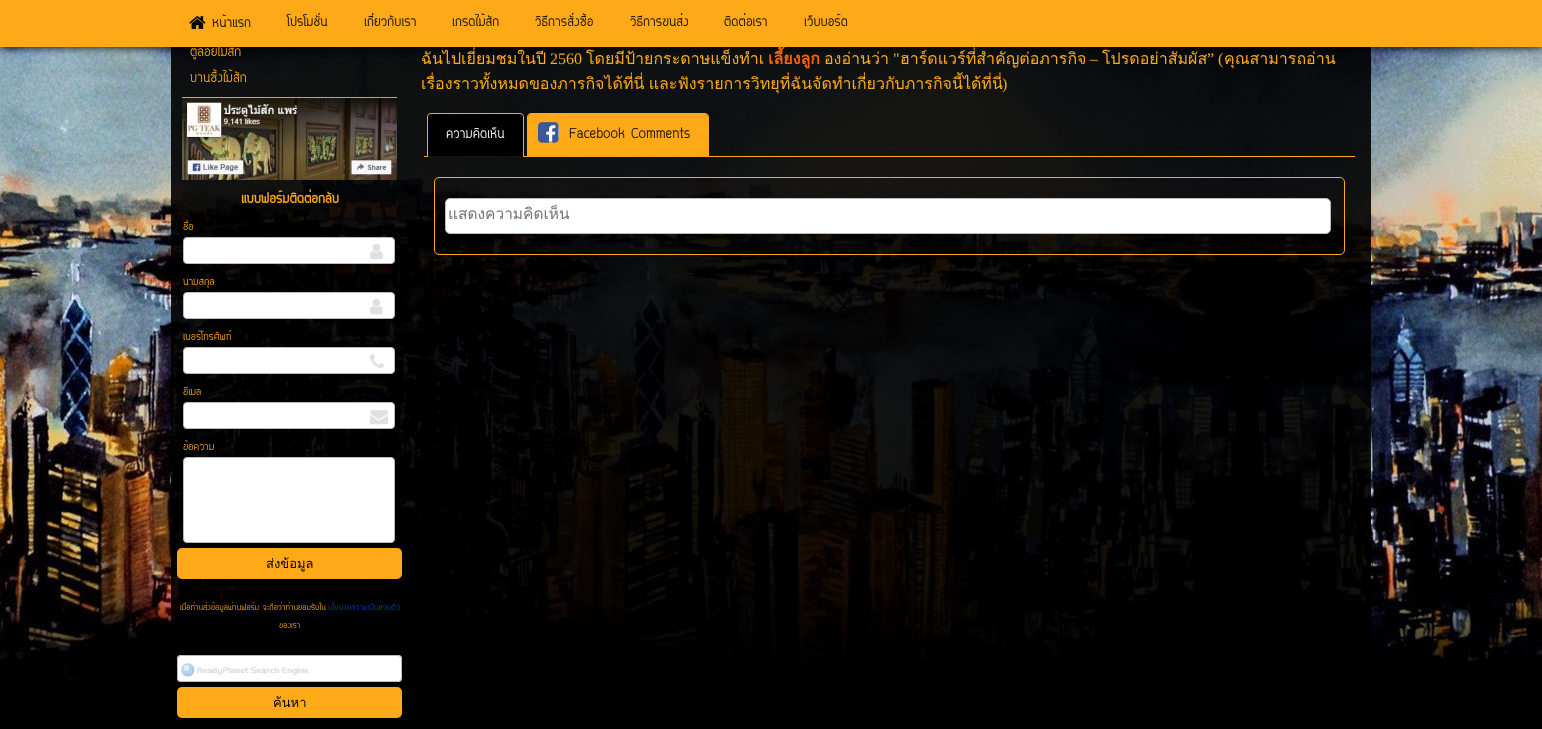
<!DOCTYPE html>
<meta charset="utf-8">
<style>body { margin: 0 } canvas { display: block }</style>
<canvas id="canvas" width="1542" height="729"></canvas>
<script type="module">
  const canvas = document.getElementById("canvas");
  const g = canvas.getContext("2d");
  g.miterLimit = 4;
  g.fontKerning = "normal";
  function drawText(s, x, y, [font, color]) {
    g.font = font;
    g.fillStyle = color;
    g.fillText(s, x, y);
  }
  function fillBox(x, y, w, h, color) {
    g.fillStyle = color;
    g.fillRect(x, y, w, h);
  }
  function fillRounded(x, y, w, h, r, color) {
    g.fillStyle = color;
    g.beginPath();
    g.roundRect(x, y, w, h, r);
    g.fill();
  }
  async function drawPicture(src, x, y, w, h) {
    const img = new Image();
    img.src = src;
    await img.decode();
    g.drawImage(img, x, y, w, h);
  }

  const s1 = ["18px Circular", "#000000"];
  const s2 = ["18px Circular", "#FDA918"];
  const s3 = ["bold 18px Circular", "#FDA918"];
  const s4 = ["14px Circular", "#FDA918"];
  const s5 = ["13px Loma", "#000000"];
  const s6 = ["11.25px Circular", "#FDA918"];
  const s7 = ["11.25px Circular", "#0044B0"];
  const s8 = ["16px Loma", "#FDA918"];
  const s9 = ["16px Liberation Serif", "#FDA918"];
  const s10 = ["bold 16px Loma", "#FF6600"];
  const s11 = ["18px Circular", "#FFFFFF"];
  const s12 = ["15.5px Loma", "#757575"];

  fillBox(0, 0, 1542, 729, "#000000");
  await drawPicture("pic1.png", 0, 47, 1542, 637);
  fillBox(171, 47, 1200, 637, "rgba(0, 0, 0, 0.9)");
  g.fillStyle = "#000000";
  g.filter = "blur(5px)";
  g.beginPath();
  g.rect(0, 0, 1542, 47);
  g.fill();
  g.filter = "none";
  fillBox(0, 0, 1542, 47, "#FDA918");
  await drawPicture("pic2.png", 189, 16, 17, 13);
  drawText("หน้าแรก", 212, 27, s1);
  drawText("โปรโมชั่น", 287, 26, s1);
  drawText("เกี่ยวกับเรา", 364, 26, s1);
  drawText("เกรดไม้สัก", 452, 26, s1);
  drawText("วิธีการสั่งซื้อ", 535, 26, s1);
  drawText("วิธีการขนส่ง", 630, 26, s1);
  drawText("ติดต่อเรา", 724, 26, s1);
  drawText("เว็บบอร์ด", 804, 26, s1);
  drawText("ตู้ลอยไม้สัก", 190, 56, s2);
  drawText("บานซื้งไม้สัก", 190, 82, s2);
  await drawPicture("pic3.png", 182, 97, 215, 83);
  drawText("แบบฟอร์มติดต่อกลับ", 241, 203, s3);
  drawText("ชื่อ", 183, 230, s4);
  g.fillStyle = "#FFFFFF";
  g.beginPath();
  g.roundRect(183.5, 237.5, 211, 26, 3.5);
  g.fill();
  g.strokeStyle = "#BBBBBB";
  g.stroke();
  await drawPicture("pic4.png", 370, 244, 13, 16);
  drawText("นามสกุล", 183, 285, s4);
  g.fillStyle = "#FFFFFF";
  g.beginPath();
  g.roundRect(183.5, 292.5, 211, 26, 3.5);
  g.fill();
  g.stroke();
  await drawPicture("pic4.png", 370, 299, 13, 16);
  drawText("เบอร์โทรศัพท์", 183, 340, s4);
  g.fillStyle = "#FFFFFF";
  g.beginPath();
  g.roundRect(183.5, 347.5, 211, 26, 3.5);
  g.fill();
  g.stroke();
  await drawPicture("pic5.png", 370, 354, 14, 14);
  drawText("อีเมล", 183, 395, s4);
  g.fillStyle = "#FFFFFF";
  g.beginPath();
  g.roundRect(183.5, 402.5, 211, 26, 3.5);
  g.fill();
  g.stroke();
  await drawPicture("pic6.png", 370, 410, 18, 15);
  drawText("ข้อความ", 183, 450, s4);
  g.fillStyle = "#FFFFFF";
  g.beginPath();
  g.roundRect(183.5, 457.5, 211, 85, 3.5);
  g.fill();
  g.stroke();
  fillRounded(177, 548, 225, 31, 5, "#FDA918");
  drawText("ส่งข้อมูล", 266, 568, s5);
  drawText("เมื่อท่านส่งข้อมูลผ่านฟอร์ม จะถือว่าท่านยอมรับใน", 180, 610, s6);
  drawText("นโยบายความเป็นส่วนตัว", 328, 610, s7);
  drawText("ของเรา", 279, 628, s6);
  fillRounded(177, 655, 225, 27, 4, "#FFFFFF");
  await drawPicture("pic7.png", 181, 663, 128, 14);
  g.beginPath();
  g.roundRect(177.5, 655.5, 224, 26, 3.5);
  g.stroke();
  fillRounded(177, 687, 225, 31, 5, "#FDA918");
  drawText("ค้นหา", 273, 707, s5);
  drawText("ฉันไปเยี่ยมชมในปี", 421, 64, s8);
  drawText("2560", 550, 64, s9);
  drawText("โดยมีป้ายกระดาษแข็งทำเ", 586, 64, s8);
  drawText("เลี้ยงลูก", 768, 64, s10);
  drawText("องอ่านว่า", 824, 64, s8);
  drawText("\"", 893, 64, s9);
  drawText("ฮาร์ดแวร์ที่สำคัญต่อภารกิจ", 900, 64, s8);
  drawText("โปรดอย่าสัมผัส", 1102, 64, s8);
  drawText("” (", 1207, 64, s9);
  drawText("คุณสามารถอ่าน", 1224, 64, s8);
  drawText("–", 1090, 64, s9);
  g.wordSpacing = "-1px";
  drawText("เรื่องราวทั้งหมดของภารกิจได้ที่นี่ และฟังรายการวิทยุที่ฉันจัดทำเกี่ยวกับภารกิจนี้ได้ที่นี่", 421, 89, s8);
  g.wordSpacing = "0px";
  drawText(")", 1002, 89, s9);
  fillBox(424, 156, 931, 1, "#FDA918");
  g.fillStyle = "rgba(0, 0, 0, 0.9)";
  g.beginPath();
  g.roundRect(428, 114, 95, 43, [3, 3, 0, 0]);
  g.fill();
  g.fillStyle = "#FDA918";
  g.beginPath();
  g.moveTo(431, 113);
  g.lineTo(520, 113);
  g.bezierCurveTo(522, 113, 524, 115, 524, 117);
  g.lineTo(524, 157);
  g.lineTo(427, 157);
  g.lineTo(427, 117);
  g.bezierCurveTo(427, 115, 429, 113, 431, 113);
  g.closePath();
  g.moveTo(431, 114);
  g.lineTo(520, 114);
  g.bezierCurveTo(522, 114, 523, 115, 523, 117);
  g.lineTo(523, 157);
  g.lineTo(428, 157);
  g.lineTo(428, 117);
  g.bezierCurveTo(428, 115, 429, 114, 431, 114);
  g.closePath();
  g.fill("evenodd");
  drawText("ความคิดเห็น", 446, 138, s11);
  g.fillStyle = "#FDA918";
  g.beginPath();
  g.roundRect(528, 114, 180, 42, [3, 3, 0, 0]);
  g.fill();
  g.beginPath();
  g.moveTo(531, 113);
  g.lineTo(705, 113);
  g.bezierCurveTo(707, 113, 709, 115, 709, 117);
  g.lineTo(709, 156);
  g.lineTo(527, 156);
  g.lineTo(527, 117);
  g.bezierCurveTo(527, 115, 529, 113, 531, 113);
  g.closePath();
  g.moveTo(531, 114);
  g.lineTo(705, 114);
  g.bezierCurveTo(707, 114, 708, 115, 708, 117);
  g.lineTo(708, 156);
  g.lineTo(528, 156);
  g.lineTo(528, 117);
  g.bezierCurveTo(528, 115, 529, 114, 531, 114);
  g.closePath();
  g.fill("evenodd");
  fillRounded(538, 123, 21, 18, 5, "#FFFFFF");
  await drawPicture("pic8.png", 538, 122, 21, 21);
  drawText("Facebook Comments", 569, 138, s1);
  g.beginPath();
  g.roundRect(434.5, 177.5, 910, 77, 4.5);
  g.strokeStyle = "#FDA918";
  g.stroke();
  g.fillStyle = "#FFFFFF";
  g.beginPath();
  g.roundRect(445.5, 198.5, 885, 35, 4.5);
  g.fill();
  g.strokeStyle = "#BBBBBB";
  g.stroke();
  drawText("แสดงความคิดเห็น", 448, 219, s12);
</script>
